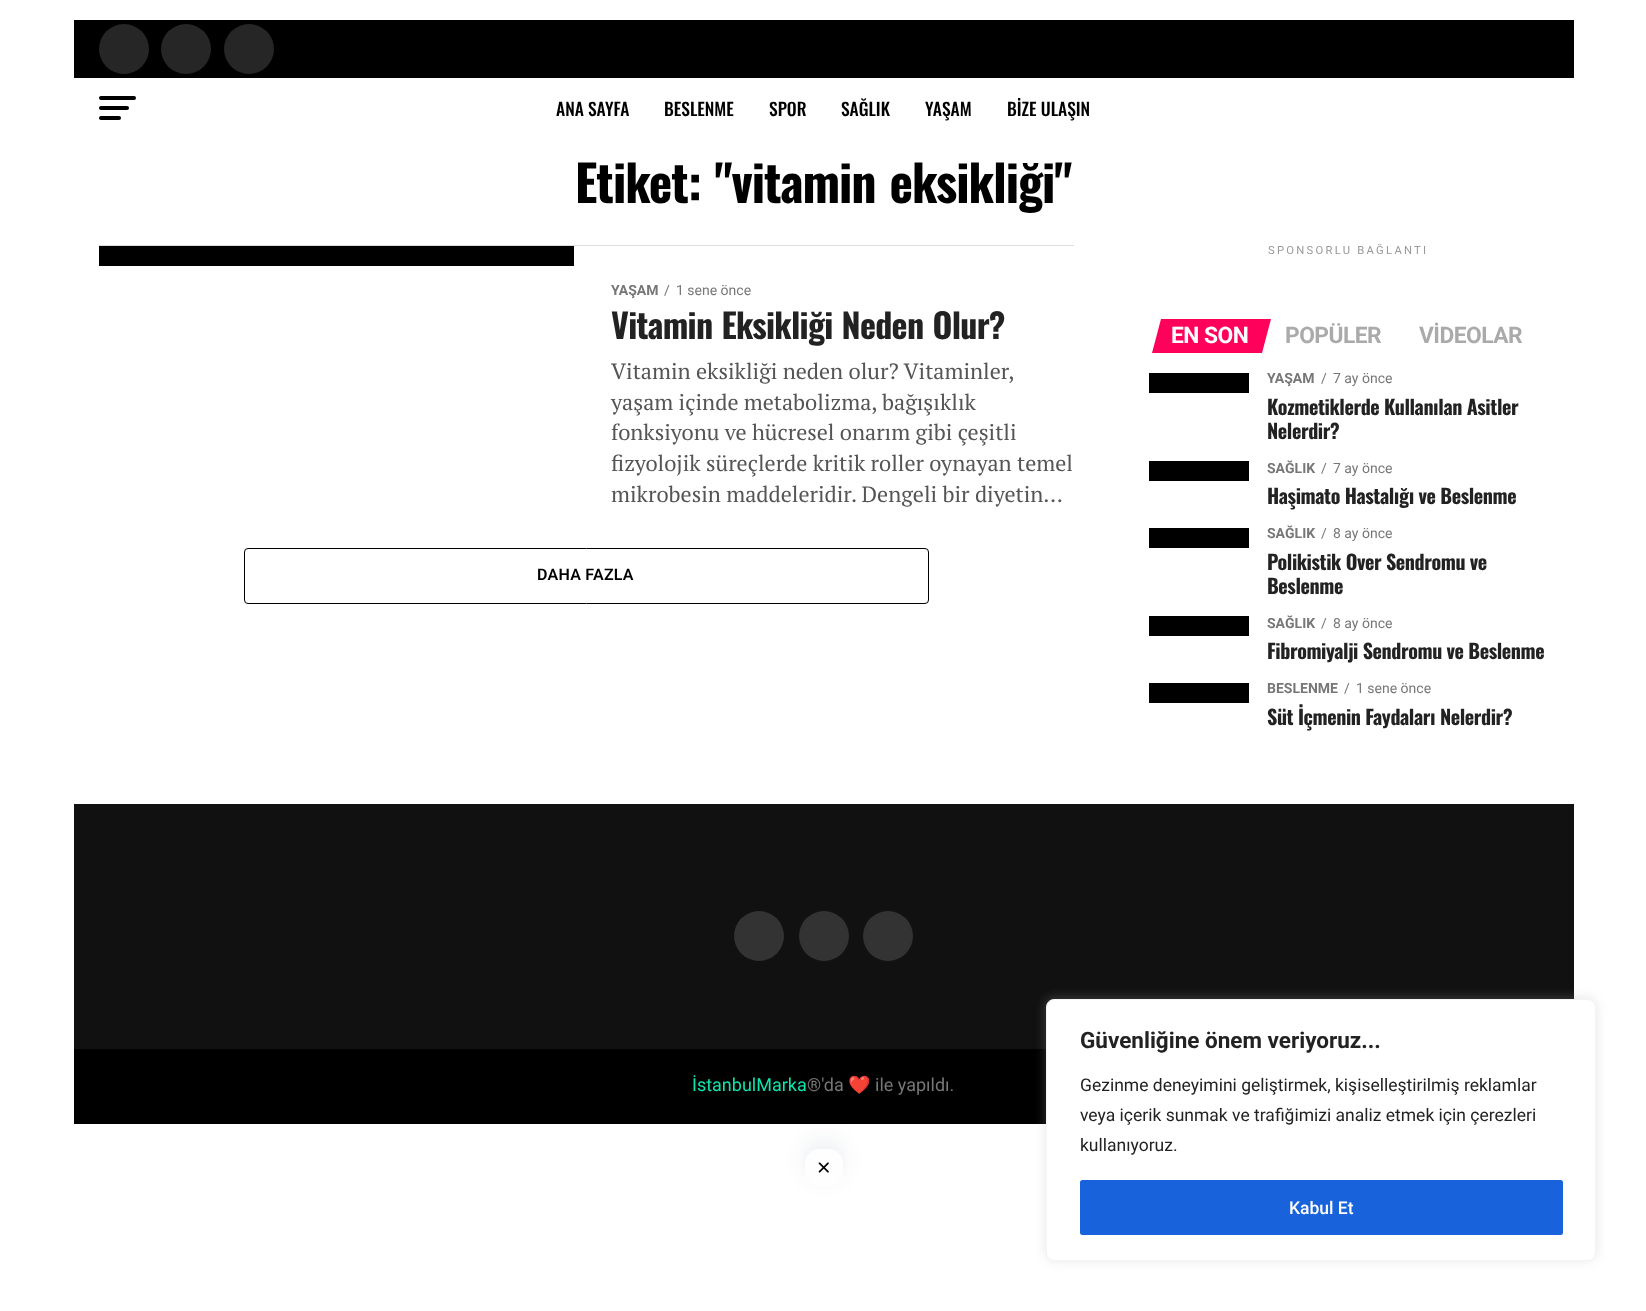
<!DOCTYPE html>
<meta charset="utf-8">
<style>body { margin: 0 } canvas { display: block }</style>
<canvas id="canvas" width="1646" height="1311"></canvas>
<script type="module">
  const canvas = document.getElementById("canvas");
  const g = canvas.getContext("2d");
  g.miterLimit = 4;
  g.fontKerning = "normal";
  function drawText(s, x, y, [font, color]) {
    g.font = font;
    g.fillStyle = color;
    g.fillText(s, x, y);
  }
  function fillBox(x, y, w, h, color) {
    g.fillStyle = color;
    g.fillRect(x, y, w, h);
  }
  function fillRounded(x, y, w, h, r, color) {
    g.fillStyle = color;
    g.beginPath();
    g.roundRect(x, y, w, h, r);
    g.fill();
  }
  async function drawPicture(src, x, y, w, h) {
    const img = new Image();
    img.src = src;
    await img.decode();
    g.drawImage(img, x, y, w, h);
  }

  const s1 = ["500 17.5px Oswald", "#000000"];
  const s2 = ["bold 50px Oswald", "#000000"];
  const s3 = ["bold 14px Roboto", "#777777"];
  const s4 = ["14px Roboto", "#777777"];
  const s5 = ["bold 34px Oswald", "#222222"];
  const s6 = ["22px PT Serif", "#555555"];
  const s7 = ["600 16px Roboto", "#000000"];
  const s8 = ["11.25px Roboto", "#999999"];
  const s9 = ["bold 22.75px Roboto", "#FFFFFF"];
  const s10 = ["bold 22.75px Roboto", "#AAAAAA"];
  const s11 = ["bold 20px Oswald", "#222222"];
  const s12 = ["18px Roboto", "#0BE6AF"];
  const s13 = ["18px Roboto", "#777777"];
  const s14 = ["18px Noto Color Emoji", "#777777"];
  const s15 = ["bold 22.5px Roboto", "#222222"];
  const s16 = ["17.5px Roboto", "#222222"];
  const s17 = ["500 17.5px Roboto", "#FFFFFF"];

  fillBox(0, 0, 1646, 1311, "#FFFFFF");
  fillBox(74, 20, 1500, 58, "#000000");
  g.fillStyle = "#262626";
  g.beginPath();
  g.arc(124, 49, 25, 0, Math.PI * 2);
  g.fill();
  g.beginPath();
  g.arc(186, 49, 25, 0, Math.PI * 2);
  g.fill();
  g.beginPath();
  g.arc(249, 49, 25, 0, Math.PI * 2);
  g.fill();
  fillRounded(99, 96, 37, 4, 2, "#000000");
  fillRounded(99, 106, 30, 4, 2, "#000000");
  fillRounded(99, 116, 22, 4, 2, "#000000");
  drawText("ANA SAYFA", 556, 116, s1);
  drawText("BESLENME", 664, 116, s1);
  drawText("SPOR", 769, 116, s1);
  drawText("SAĞLIK", 841, 116, s1);
  drawText("YAŞAM", 925, 116, s1);
  drawText("BİZE ULAŞIN", 1007, 116, s1);
  g.letterSpacing = "-1px";
  g.wordSpacing = "2px";
  drawText("Etiket: \"vitamin eksikliği\"", 575, 203, s2);
  fillBox(99, 245, 975, 1, "#DDDDDD");
  fillBox(99, 246, 475, 20, "#000000");
  g.letterSpacing = "0px";
  g.wordSpacing = "0px";
  drawText("YAŞAM", 611, 295, s3);
  drawText("/", 664, 295, s4);
  drawText("1 sene önce", 676, 295, s4);
  g.letterSpacing = "-0.7px";
  g.wordSpacing = "1px";
  drawText("Vitamin Eksikliği Neden Olur?", 611, 339, s5);
  g.letterSpacing = "0px";
  g.wordSpacing = "0px";
  drawText("Vitamin eksikliği neden olur? Vitaminler,", 611, 379, s6);
  drawText("yaşam içinde metabolizma, bağışıklık", 611, 410, s6);
  drawText("fonksiyonu ve hücresel onarım gibi çeşitli", 611, 440, s6);
  drawText("fizyolojik süreçlerde kritik roller oynayan temel", 611, 471, s6);
  drawText("mikrobesin maddeleridir. Dengeli bir diyetin...", 611, 502, s6);
  g.beginPath();
  g.roundRect(244.5, 548.5, 684, 55, 3.5);
  g.strokeStyle = "#000000";
  g.stroke();
  g.letterSpacing = "0.25px";
  drawText("DAHA FAZLA", 537, 580, s7);
  g.letterSpacing = "2.25px";
  drawText("SPONSORLU BAĞLANTI", 1268, 254, s8);
  g.fillStyle = "#FF005B";
  g.beginPath();
  g.moveTo(1161, 319);
  g.lineTo(1271, 319);
  g.lineTo(1262, 353);
  g.lineTo(1152, 353);
  g.closePath();
  g.fill();
  g.letterSpacing = "-0.5px";
  drawText("EN SON", 1171, 343, s9);
  drawText("POPÜLER", 1285, 343, s10);
  drawText("VİDEOLAR", 1419, 343, s10);
  fillBox(1149, 373, 100, 20, "#000000");
  g.letterSpacing = "0px";
  drawText("YAŞAM", 1267, 383, s3);
  drawText("/", 1321, 383, s4);
  drawText("7 ay önce", 1333, 383, s4);
  g.letterSpacing = "-0.4px";
  drawText("Kozmetiklerde Kullanılan Asitler", 1267, 415, s11);
  drawText("Nelerdir?", 1267, 439, s11);
  fillBox(1149, 461, 100, 20, "#000000");
  g.letterSpacing = "0px";
  drawText("SAĞLIK", 1267, 473, s3);
  drawText("/", 1321, 473, s4);
  drawText("7 ay önce", 1333, 473, s4);
  g.letterSpacing = "-0.4px";
  drawText("Haşimato Hastalığı ve Beslenme", 1267, 504, s11);
  fillBox(1149, 528, 100, 20, "#000000");
  g.letterSpacing = "0px";
  drawText("SAĞLIK", 1267, 538, s3);
  drawText("/", 1321, 538, s4);
  drawText("8 ay önce", 1333, 538, s4);
  g.letterSpacing = "-0.4px";
  drawText("Polikistik Over Sendromu ve", 1267, 570, s11);
  drawText("Beslenme", 1267, 594, s11);
  fillBox(1149, 616, 100, 20, "#000000");
  g.letterSpacing = "0px";
  drawText("SAĞLIK", 1267, 628, s3);
  drawText("/", 1321, 628, s4);
  drawText("8 ay önce", 1333, 628, s4);
  g.letterSpacing = "-0.4px";
  drawText("Fibromiyalji Sendromu ve Beslenme", 1267, 659, s11);
  fillBox(1149, 683, 100, 20, "#000000");
  g.letterSpacing = "0px";
  drawText("BESLENME", 1267, 693, s3);
  drawText("/", 1344, 693, s4);
  drawText("1 sene önce", 1356, 693, s4);
  g.letterSpacing = "-0.4px";
  drawText("Süt İçmenin Faydaları Nelerdir?", 1267, 725, s11);
  fillBox(74, 804, 1500, 245, "#111111");
  g.fillStyle = "#333333";
  g.beginPath();
  g.arc(759, 936, 25, 0, Math.PI * 2);
  g.fill();
  g.beginPath();
  g.arc(824, 936, 25, 0, Math.PI * 2);
  g.fill();
  g.beginPath();
  g.arc(888, 936, 25, 0, Math.PI * 2);
  g.fill();
  fillBox(74, 1049, 972, 75, "#000000");
  g.letterSpacing = "0px";
  drawText("İstanbulMarka", 692, 1091, s12);
  drawText("®'da", 807, 1091, s13);
  drawText("❤️", 848, 1091, s14);
  drawText("ile yapıldı.", 875, 1091, s13);
  g.fillStyle = "rgba(9, 32, 76, 0.08)";
  g.filter = "blur(11px)";
  g.beginPath();
  g.roundRect(805, 1141, 38, 38, 15);
  g.fill();
  g.filter = "none";
  fillRounded(805, 1149, 38, 37, 15, "#FEFEFE");
  await drawPicture("pic1.png", 818, 1162, 11, 11);
  g.fillStyle = "rgba(172, 171, 171, 0.3)";
  g.filter = "blur(6px)";
  g.beginPath();
  g.roundRect(1046, 998, 550, 262, 8);
  g.fill();
  g.filter = "none";
  g.fillStyle = "#FFFFFF";
  g.beginPath();
  g.roundRect(1046.5, 999.5, 549, 261, 7.5);
  g.fill();
  g.strokeStyle = "#F4F4F4";
  g.stroke();
  drawText("Güvenliğine önem veriyoruz...", 1080, 1048, s15);
  drawText("Gezinme deneyimini geliştirmek, kişiselleştirilmiş reklamlar", 1080, 1091, s16);
  drawText("veya içerik sunmak ve trafiğimizi analiz etmek için çerezleri", 1080, 1121, s16);
  drawText("kullanıyoruz.", 1080, 1151, s16);
  g.fillStyle = "#1863DC";
  g.beginPath();
  g.roundRect(1081.5, 1181.5, 480, 52, 1);
  g.fill();
  g.strokeStyle = "#1863DC";
  g.lineWidth = 3;
  g.stroke();
  drawText("Kabul Et", 1289, 1214, s17);
</script>
